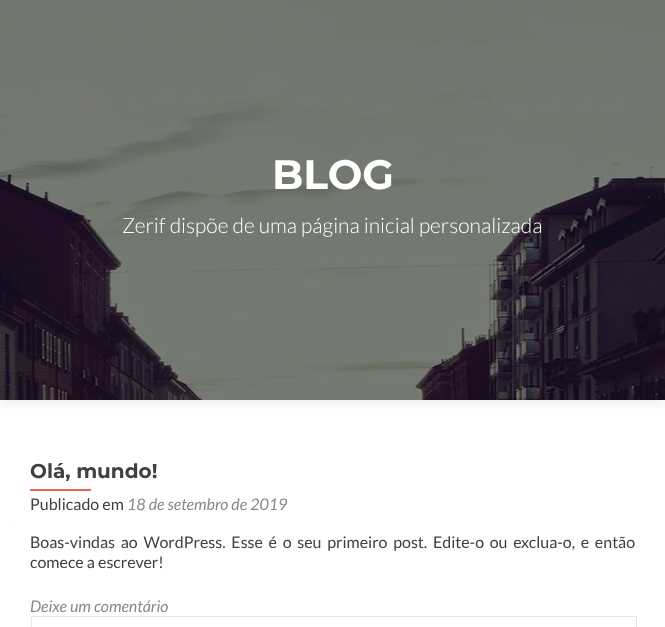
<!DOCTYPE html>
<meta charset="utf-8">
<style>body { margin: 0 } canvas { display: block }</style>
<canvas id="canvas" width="665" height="627"></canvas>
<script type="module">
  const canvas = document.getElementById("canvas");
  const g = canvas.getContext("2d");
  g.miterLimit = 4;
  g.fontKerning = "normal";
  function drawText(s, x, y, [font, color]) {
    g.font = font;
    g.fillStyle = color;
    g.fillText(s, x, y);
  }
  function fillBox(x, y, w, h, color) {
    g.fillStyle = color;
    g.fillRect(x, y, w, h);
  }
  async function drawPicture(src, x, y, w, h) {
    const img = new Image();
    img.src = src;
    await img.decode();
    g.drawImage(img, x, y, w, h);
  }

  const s1 = ["bold 41px Montserrat", "#FFFFFF"];
  const s2 = ["300 21px Lato", "#FFFFFF"];
  const s3 = ["bold 20px Montserrat", "#404040"];
  const s4 = ["16px Lato", "#404040"];
  const s5 = ["italic 16px Lato", "#888888"];

  fillBox(0, 0, 665, 627, "#FFFFFF");
  await drawPicture("pic1.png", 0, 0, 665, 400);
  g.save();
  g.beginPath();
  g.rect(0, 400, 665, 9);
  g.clip();
  g.fillStyle = "rgba(50, 50, 50, 0.08)";
  g.filter = "blur(5.5px)";
  g.beginPath();
  g.rect(0, -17, 665, 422);
  g.fill();
  g.filter = "none";
  g.restore();
  fillBox(0, 0, 665, 400, "rgba(0, 0, 0, 0.5)");
  drawText("BLOG", 272, 189, s1);
  drawText("Zerif dispõe de uma página inicial personalizada", 122, 233, s2);
  drawText("Olá, mundo!", 30, 478, s3);
  fillBox(30, 489, 61, 2, "#E96656");
  drawText("Publicado em", 30, 510, s4);
  drawText("18 de setembro de 2019", 127, 510, s5);
  g.wordSpacing = "2.6px";
  drawText("Boas-vindas ao WordPress. Esse é o seu primeiro post. Edite-o ou exclua-o, e então", 30, 548, s4);
  g.wordSpacing = "0px";
  drawText("comece a escrever!", 30, 568, s4);
  drawText("Deixe um comentário", 30, 612, s5);
  fillBox(15, 520, 1, 1, "#F2F2F2");
  g.strokeStyle = "#E6E6E6";
  g.strokeRect(31.5, 616.5, 605, 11);
</script>
